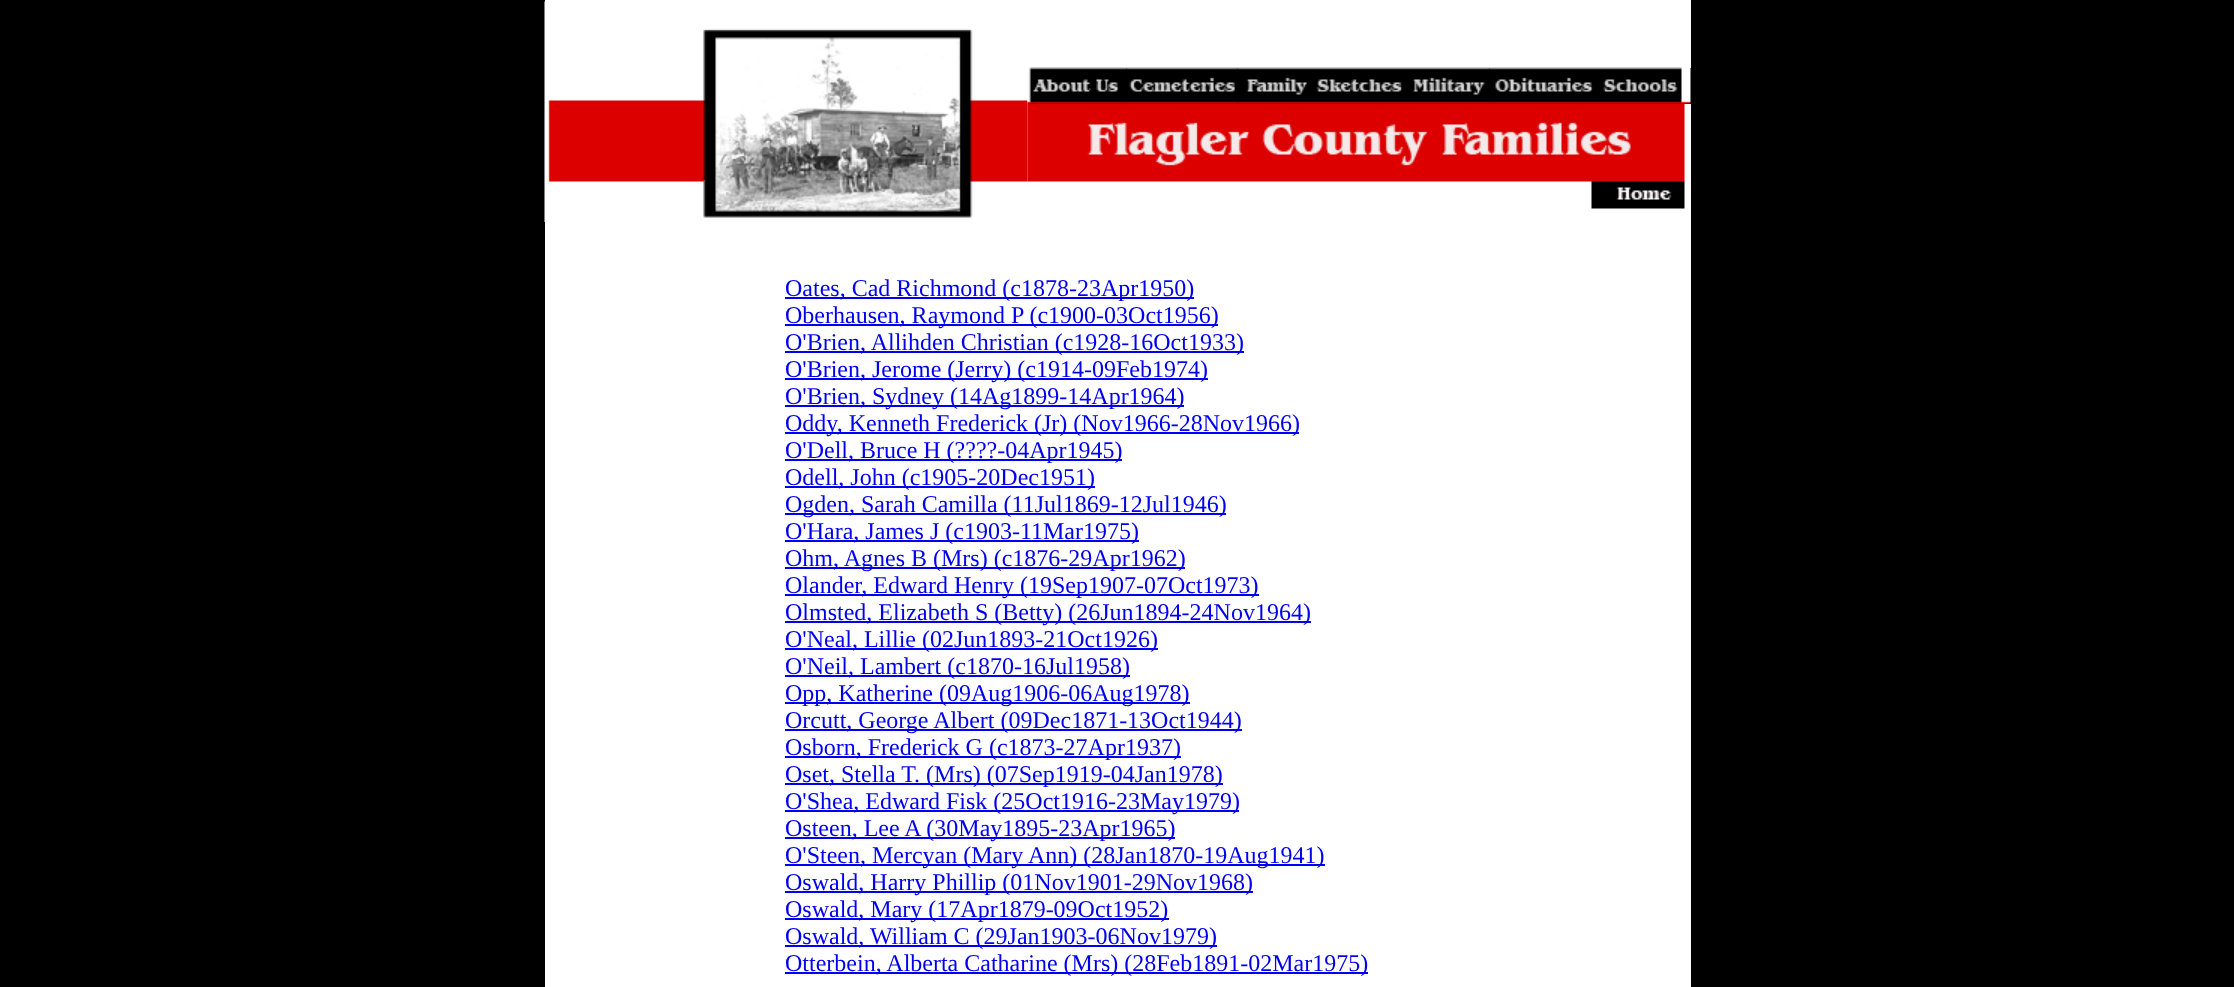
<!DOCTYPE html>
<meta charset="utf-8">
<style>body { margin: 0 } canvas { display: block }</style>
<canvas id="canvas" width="2234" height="987"></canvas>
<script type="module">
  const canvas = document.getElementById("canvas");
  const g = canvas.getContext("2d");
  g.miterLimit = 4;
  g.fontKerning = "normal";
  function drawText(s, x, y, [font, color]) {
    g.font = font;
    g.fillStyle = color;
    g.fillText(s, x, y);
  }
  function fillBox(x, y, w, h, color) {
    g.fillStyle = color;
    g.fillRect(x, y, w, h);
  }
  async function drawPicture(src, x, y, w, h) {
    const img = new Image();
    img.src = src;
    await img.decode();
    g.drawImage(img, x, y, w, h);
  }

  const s1 = ["24px Liberation Serif", "#0000EE"];

  fillBox(0, 0, 2234, 987, "#000000");
  fillBox(545, 0, 483, 224, "#FFFFFF");
  await drawPicture("pic1.png", 544, 1, 484, 221);
  fillBox(1028, 0, 663, 68, "#FFFFFF");
  await drawPicture("pic2.png", 1027, 67, 100, 37);
  await drawPicture("pic3.png", 1126, 67, 112, 37);
  await drawPicture("pic4.png", 1237, 67, 170, 37);
  await drawPicture("pic5.png", 1407, 67, 83, 37);
  await drawPicture("pic6.png", 1489, 67, 107, 37);
  await drawPicture("pic7.png", 1596, 67, 95, 37);
  fillBox(1028, 104, 663, 120, "#FFFFFF");
  await drawPicture("pic8.png", 1027, 103, 658, 106);
  fillBox(545, 224, 1146, 763, "#FFFFFF");
  fillBox(785, 297, 409, 2, "#0000EE");
  drawText("Oates, Cad Richmond (c1878-23Apr1950)", 785, 296, s1);
  fillBox(785, 324, 433, 2, "#0000EE");
  drawText("Oberhausen, Raymond P (c1900-03Oct1956)", 785, 323, s1);
  fillBox(785, 351, 459, 2, "#0000EE");
  drawText("O'Brien, Allihden Christian (c1928-16Oct1933)", 785, 350, s1);
  fillBox(785, 378, 423, 2, "#0000EE");
  drawText("O'Brien, Jerome (Jerry) (c1914-09Feb1974)", 785, 377, s1);
  fillBox(785, 405, 399, 2, "#0000EE");
  drawText("O'Brien, Sydney (14Ag1899-14Apr1964)", 785, 404, s1);
  fillBox(785, 432, 514, 2, "#0000EE");
  drawText("Oddy, Kenneth Frederick (Jr) (Nov1966-28Nov1966)", 785, 431, s1);
  fillBox(785, 459, 337, 2, "#0000EE");
  drawText("O'Dell, Bruce H (????-04Apr1945)", 785, 458, s1);
  fillBox(785, 486, 310, 2, "#0000EE");
  drawText("Odell, John (c1905-20Dec1951)", 785, 485, s1);
  fillBox(785, 513, 441, 2, "#0000EE");
  drawText("Ogden, Sarah Camilla (11Jul1869-12Jul1946)", 785, 512, s1);
  fillBox(785, 540, 354, 2, "#0000EE");
  drawText("O'Hara, James J (c1903-11Mar1975)", 785, 539, s1);
  fillBox(785, 567, 400, 2, "#0000EE");
  drawText("Ohm, Agnes B (Mrs) (c1876-29Apr1962)", 785, 566, s1);
  fillBox(785, 594, 474, 2, "#0000EE");
  drawText("Olander, Edward Henry (19Sep1907-07Oct1973)", 785, 593, s1);
  fillBox(785, 621, 526, 2, "#0000EE");
  drawText("Olmsted, Elizabeth S (Betty) (26Jun1894-24Nov1964)", 785, 620, s1);
  fillBox(785, 648, 373, 2, "#0000EE");
  drawText("O'Neal, Lillie (02Jun1893-21Oct1926)", 785, 647, s1);
  fillBox(785, 675, 345, 2, "#0000EE");
  drawText("O'Neil, Lambert (c1870-16Jul1958)", 785, 674, s1);
  fillBox(785, 702, 405, 2, "#0000EE");
  drawText("Opp, Katherine (09Aug1906-06Aug1978)", 785, 701, s1);
  fillBox(785, 729, 457, 2, "#0000EE");
  drawText("Orcutt, George Albert (09Dec1871-13Oct1944)", 785, 728, s1);
  fillBox(785, 756, 396, 2, "#0000EE");
  drawText("Osborn, Frederick G (c1873-27Apr1937)", 785, 755, s1);
  fillBox(785, 783, 438, 2, "#0000EE");
  drawText("Oset, Stella T. (Mrs) (07Sep1919-04Jan1978)", 785, 782, s1);
  fillBox(785, 810, 454, 2, "#0000EE");
  drawText("O'Shea, Edward Fisk (25Oct1916-23May1979)", 785, 809, s1);
  fillBox(785, 837, 390, 2, "#0000EE");
  drawText("Osteen, Lee A (30May1895-23Apr1965)", 785, 836, s1);
  fillBox(785, 864, 540, 2, "#0000EE");
  drawText("O'Steen, Mercyan (Mary Ann) (28Jan1870-19Aug1941)", 785, 863, s1);
  fillBox(785, 891, 468, 2, "#0000EE");
  drawText("Oswald, Harry Phillip (01Nov1901-29Nov1968)", 785, 890, s1);
  fillBox(785, 918, 384, 2, "#0000EE");
  drawText("Oswald, Mary (17Apr1879-09Oct1952)", 785, 917, s1);
  fillBox(785, 945, 432, 2, "#0000EE");
  drawText("Oswald, William C (29Jan1903-06Nov1979)", 785, 944, s1);
  fillBox(785, 972, 583, 2, "#0000EE");
  drawText("Otterbein, Alberta Catharine (Mrs) (28Feb1891-02Mar1975)", 785, 971, s1);
</script>
